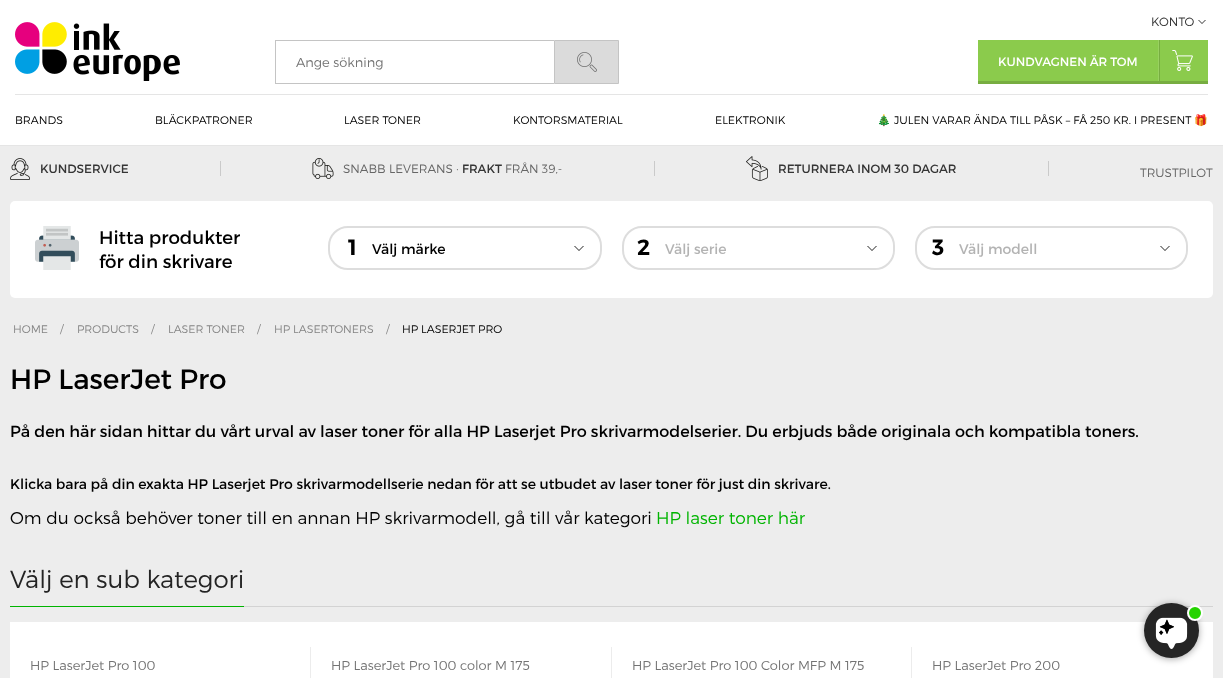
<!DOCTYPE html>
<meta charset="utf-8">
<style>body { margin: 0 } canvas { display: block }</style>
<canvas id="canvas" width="1223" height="678"></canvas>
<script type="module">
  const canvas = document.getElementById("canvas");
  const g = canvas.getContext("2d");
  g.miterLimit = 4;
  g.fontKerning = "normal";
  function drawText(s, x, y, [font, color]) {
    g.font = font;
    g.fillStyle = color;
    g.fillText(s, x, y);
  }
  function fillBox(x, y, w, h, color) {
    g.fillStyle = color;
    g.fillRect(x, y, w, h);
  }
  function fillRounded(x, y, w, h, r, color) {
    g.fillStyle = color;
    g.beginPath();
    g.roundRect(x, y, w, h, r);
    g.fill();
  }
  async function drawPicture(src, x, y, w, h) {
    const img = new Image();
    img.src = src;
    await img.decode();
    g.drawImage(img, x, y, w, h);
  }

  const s1 = ["300 12px Montserrat", "#353535"];
  const s2 = ["300 11px Montserrat", "#000000"];
  const s3 = ["11px Noto Color Emoji", "#000000"];
  const s4 = ["300 13px Montserrat", "#737373"];
  const s5 = ["12px Montserrat", "#FFFFFF"];
  const s6 = ["12px Montserrat", "#353535"];
  const s7 = ["300 12px Montserrat", "#666666"];
  const s8 = ["18.25px Montserrat", "#000000"];
  const s9 = ["600 22px Montserrat", "#000000"];
  const s10 = ["14px Montserrat", "#000000"];
  const s11 = ["14px Montserrat", "#B3B3B3"];
  const s12 = ["300 11px Montserrat", "#858585"];
  const s13 = ["28px Montserrat", "#000000"];
  const s14 = ["16px Montserrat", "#000000"];
  const s15 = ["300 17px Montserrat", "#000000"];
  const s16 = ["300 17px Montserrat", "#00B400"];
  const s17 = ["300 24.5px Montserrat", "#232323"];

  fillBox(0, 0, 1223, 678, "#FFFFFF");
  fillBox(0, 145, 1223, 1, "#E5E5E5");
  drawText("KONTO", 1151, 26, s1);
  g.beginPath();
  g.moveTo(1198, 20);
  g.lineTo(1206, 20);
  g.lineTo(1202, 24);
  g.closePath();
  g.fill();
  g.fillStyle = "#FFFFFF";
  g.beginPath();
  g.moveTo(1198, 19);
  g.lineTo(1206, 19);
  g.lineTo(1202, 23);
  g.closePath();
  g.fill();
  fillBox(15, 94, 1193, 1, "#E5E5E5");
  drawText("BRANDS", 15, 124, s2);
  drawText("BLÄCKPATRONER", 155, 124, s2);
  drawText("LASER TONER", 344, 124, s2);
  drawText("KONTORSMATERIAL", 513, 124, s2);
  drawText("ELEKTRONIK", 715, 124, s2);
  drawText("🎄", 877, 124, s3);
  drawText("JULEN VARAR ÄNDA TILL PÅSK – FÅ 250 KR. I PRESENT", 894, 124, s2);
  drawText("🎁", 1194, 124, s3);
  fillBox(275, 40, 279, 1, "#C4C4C4");
  fillBox(275, 83, 279, 1, "#C4C4C4");
  fillBox(275, 40, 1, 44, "#C4C4C4");
  drawText("Ange sökning", 296, 67, s4);
  g.fillStyle = "#DBDBDB";
  g.beginPath();
  g.rect(554.5, 40.5, 64, 43);
  g.fill();
  g.strokeStyle = "#C4C4C4";
  g.stroke();
  await drawPicture("pic1.png", 577, 52, 20, 20);
  await drawPicture("pic2.png", 15, 22, 165, 59);
  fillBox(978, 40, 230, 41, "#8BCB4C");
  fillBox(978, 81, 230, 3, "#77AD41");
  drawText("KUNDVAGNEN ÄR TOM", 998, 66, s5);
  fillBox(1158, 40, 1, 41, "#99D161");
  fillBox(1159, 40, 1, 41, "#77AD41");
  await drawPicture("pic3.png", 1172, 50, 21, 21);
  fillBox(0, 146, 1223, 532, "#EDEDED");
  await drawPicture("pic4.png", 10, 158, 20, 22);
  drawText("KUNDSERVICE", 40, 173, s6);
  fillBox(220, 161, 1, 15, "#CACACA");
  await drawPicture("pic5.png", 312, 158, 22, 21);
  drawText("SNABB LEVERANS ·", 343, 173, s7);
  drawText("FRAKT", 462, 173, s6);
  drawText("FRÅN 39,-", 505, 173, s7);
  fillBox(654, 161, 1, 15, "#CACACA");
  await drawPicture("pic6.png", 746, 156, 22, 25);
  drawText("RETURNERA INOM 30 DAGAR", 778, 173, s6);
  fillBox(1048, 161, 1, 15, "#CACACA");
  drawText("TRUSTPILOT", 1140, 177, s7);
  fillRounded(10, 201, 1203, 97, 5, "#FFFFFF");
  await drawPicture("pic7.png", 35, 226, 44, 44);
  drawText("Hitta produkter", 99, 244, s8);
  drawText("för din skrivare", 99, 268, s8);
  g.beginPath();
  g.roundRect(329, 227, 272, 42, 19);
  g.strokeStyle = "#DDDDDD";
  g.lineWidth = 2;
  g.stroke();
  drawText("1", 348, 255, s9);
  g.fillStyle = "#FFFFFF";
  g.beginPath();
  g.roundRect(357, 228, 243, 40, [0, 20, 20, 0]);
  g.fill();
  drawText("Välj märke", 372, 254, s10);
  g.fillStyle = "#232323";
  g.beginPath();
  g.moveTo(574, 246);
  g.lineTo(584, 246);
  g.lineTo(579, 251);
  g.closePath();
  g.fill();
  g.fillStyle = "#FFFFFF";
  g.beginPath();
  g.moveTo(574, 245);
  g.lineTo(584, 245);
  g.lineTo(579, 250);
  g.closePath();
  g.fill();
  g.beginPath();
  g.roundRect(623, 227, 271, 42, 19);
  g.stroke();
  drawText("2", 637, 255, s9);
  g.fillStyle = "#FFFFFF";
  g.beginPath();
  g.roundRect(650, 228, 243, 40, [0, 20, 20, 0]);
  g.fill();
  drawText("Välj serie", 665, 254, s11);
  g.fillStyle = "#232323";
  g.beginPath();
  g.moveTo(867, 246);
  g.lineTo(877, 246);
  g.lineTo(872, 251);
  g.closePath();
  g.fill();
  g.fillStyle = "#FFFFFF";
  g.beginPath();
  g.moveTo(867, 245);
  g.lineTo(877, 245);
  g.lineTo(872, 250);
  g.closePath();
  g.fill();
  g.beginPath();
  g.roundRect(916, 227, 271, 42, 19);
  g.stroke();
  drawText("3", 932, 255, s9);
  g.fillStyle = "#FFFFFF";
  g.beginPath();
  g.roundRect(944, 228, 242, 40, [0, 20, 20, 0]);
  g.fill();
  drawText("Välj modell", 959, 254, s11);
  g.fillStyle = "#232323";
  g.beginPath();
  g.moveTo(1160, 246);
  g.lineTo(1170, 246);
  g.lineTo(1165, 251);
  g.closePath();
  g.fill();
  g.fillStyle = "#FFFFFF";
  g.beginPath();
  g.moveTo(1160, 245);
  g.lineTo(1170, 245);
  g.lineTo(1165, 250);
  g.closePath();
  g.fill();
  drawText("HOME", 13, 333, s12);
  drawText("/", 60, 333, s12);
  drawText("PRODUCTS", 77, 333, s12);
  drawText("/", 151, 333, s12);
  drawText("LASER TONER", 168, 333, s12);
  drawText("/", 257, 333, s12);
  drawText("HP LASERTONERS", 274, 333, s12);
  drawText("/", 386, 333, s12);
  drawText("HP LASERJET PRO", 402, 333, s2);
  drawText("HP LaserJet Pro", 10, 389, s13);
  drawText("På den här sidan hittar du vårt urval av laser toner för alla HP Laserjet Pro skrivarmodelserier. Du erbjuds både originala och kompatibla toners.", 10, 437, s14);
  drawText("Klicka bara på din exakta HP Laserjet Pro skrivarmodellserie nedan för att se utbudet av laser toner för just din skrivare.", 10, 489, s10);
  drawText("Om du också behöver toner till en annan HP skrivarmodell, gå till vår kategori", 10, 524, s15);
  drawText("HP laser toner här", 656, 524, s16);
  fillBox(244, 606, 969, 1, "#D3D3D3");
  fillBox(10, 606, 234, 1, "#00B400");
  drawText("Välj en sub kategori", 10, 588, s17);
  fillBox(10, 622, 1203, 56, "#FFFFFF");
  fillBox(310, 647, 1, 31, "#ECECEC");
  drawText("HP LaserJet Pro 100", 30, 670, s4);
  fillBox(611, 647, 1, 31, "#ECECEC");
  drawText("HP LaserJet Pro 100 color M 175", 331, 670, s4);
  fillBox(911, 647, 1, 31, "#ECECEC");
  drawText("HP LaserJet Pro 100 Color MFP M 175", 632, 670, s4);
  drawText("HP LaserJet Pro 200", 932, 670, s4);
  g.fillStyle = "rgba(0, 0, 0, 0.35)";
  g.filter = "blur(3.5px)";
  g.beginPath();
  g.roundRect(1144, 604, 55, 55, 27.5);
  g.fill();
  g.filter = "none";
  g.fillStyle = "#252525";
  g.beginPath();
  g.arc(1171.5, 630.5, 27.5, 0, Math.PI * 2);
  g.fill();
  await drawPicture("pic8.png", 1155, 617, 33, 32);
  g.fillStyle = "#25D300";
  g.beginPath();
  g.arc(1195, 613, 7, 0, Math.PI * 2);
  g.fill();
  g.strokeStyle = "#FFFFFF";
  g.stroke();
</script>
